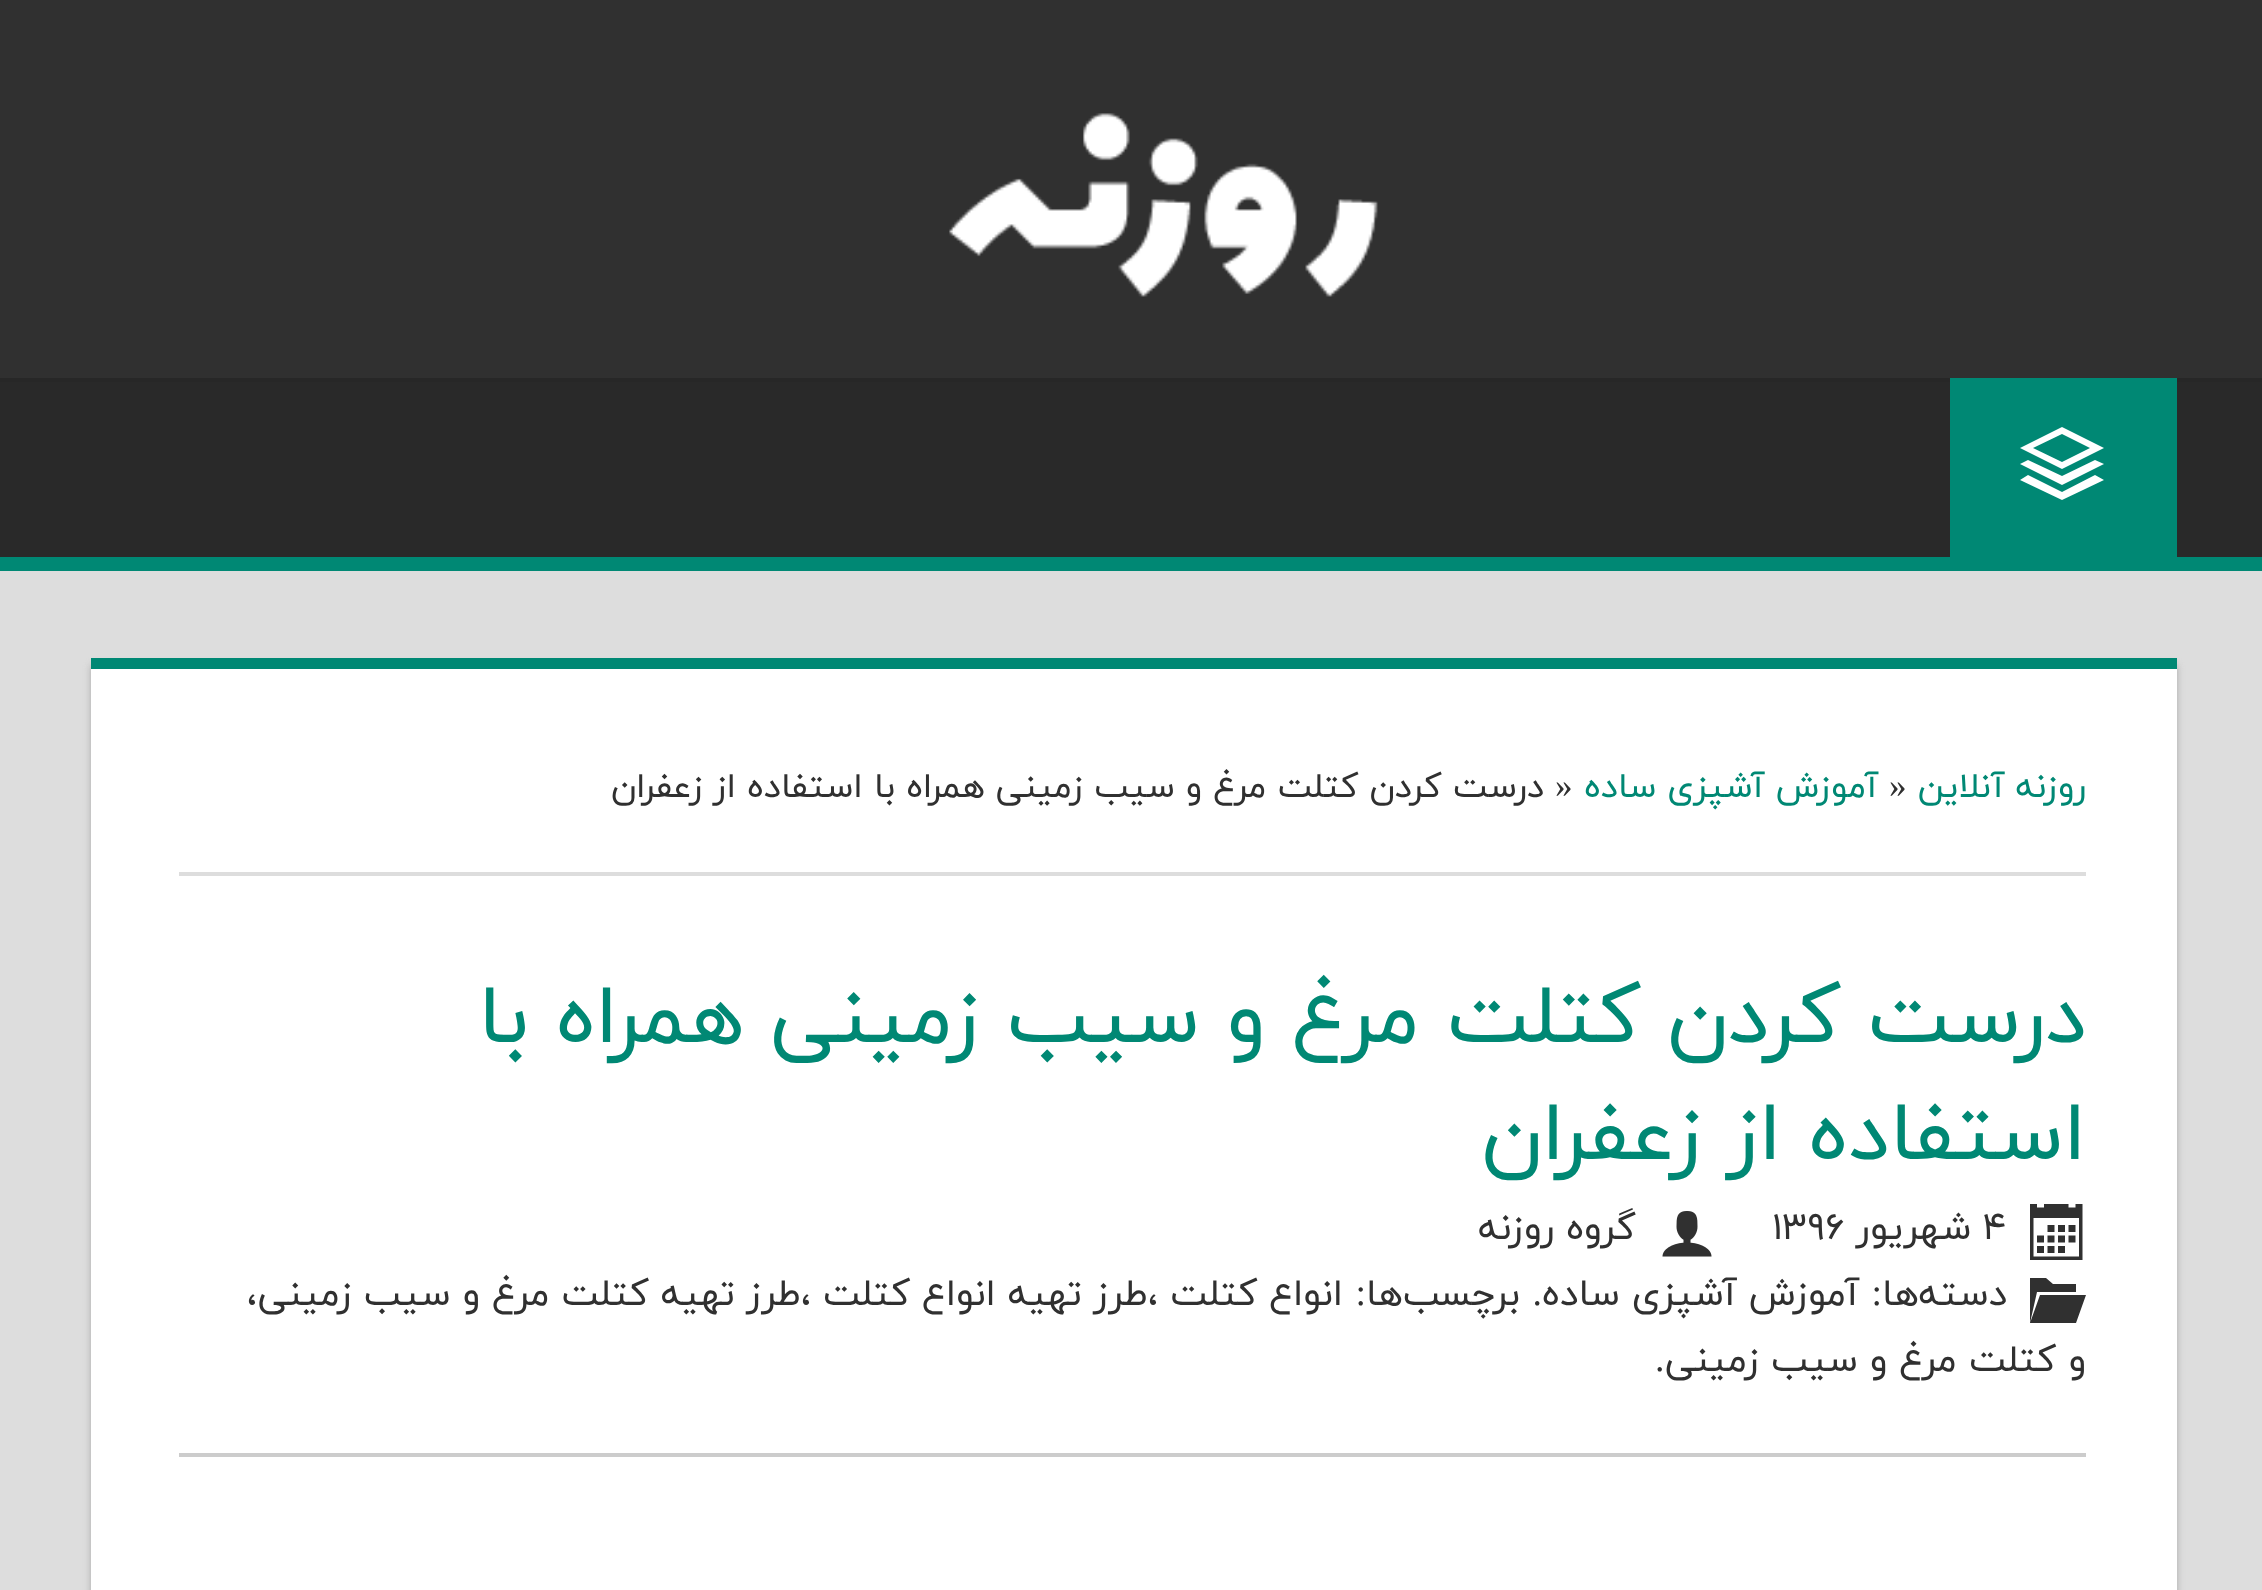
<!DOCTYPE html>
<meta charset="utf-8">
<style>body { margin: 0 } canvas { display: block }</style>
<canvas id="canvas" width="2262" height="1590"></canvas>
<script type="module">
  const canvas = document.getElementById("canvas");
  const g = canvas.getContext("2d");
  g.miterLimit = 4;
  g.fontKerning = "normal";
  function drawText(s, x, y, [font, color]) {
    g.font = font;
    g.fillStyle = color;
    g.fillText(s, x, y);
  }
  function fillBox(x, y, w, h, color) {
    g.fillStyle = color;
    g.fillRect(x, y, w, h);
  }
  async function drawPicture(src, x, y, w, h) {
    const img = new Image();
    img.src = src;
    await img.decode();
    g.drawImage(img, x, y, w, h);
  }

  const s1 = ["35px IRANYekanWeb", "#008874"];
  const s2 = ["35px Liberation Serif", "#303030"];
  const s3 = ["35px IRANYekanWeb", "#303030"];
  const s4 = ["84px IRANYekanWeb", "#008874"];
  const s5 = ["37.75px IRANYekanWeb", "#303030"];
  const s6 = ["37.75px Liberation Serif", "#303030"];

  fillBox(0, 0, 2262, 1590, "#DDDDDD");
  fillBox(0, 0, 2262, 378, "#303030");
  await drawPicture("pic1.png", 949, 113, 429, 184);
  fillBox(0, 382, 2262, 175, "#292929");
  fillBox(0, 378, 2262, 4, "#272727");
  fillBox(0, 557, 2262, 14, "#008874");
  fillBox(1950, 378, 227, 179, "#008874");
  g.fillStyle = "#FFFFFF";
  g.beginPath();
  g.moveTo(2104, 448);
  g.lineTo(2062, 427);
  g.lineTo(2020, 448);
  g.lineTo(2062, 469);
  g.closePath();
  g.moveTo(2062, 434);
  g.lineTo(2090, 448);
  g.lineTo(2062, 462);
  g.lineTo(2033, 448);
  g.closePath();
  g.moveTo(2095, 460);
  g.lineTo(2104, 464);
  g.lineTo(2062, 485);
  g.lineTo(2020, 464);
  g.lineTo(2028, 460);
  g.lineTo(2062, 476);
  g.closePath();
  g.moveTo(2095, 475);
  g.lineTo(2104, 480);
  g.lineTo(2062, 500);
  g.lineTo(2020, 480);
  g.lineTo(2028, 475);
  g.lineTo(2062, 492);
  g.closePath();
  g.fill();
  g.fillStyle = "#AAAAAA";
  g.filter = "blur(3.5px)";
  g.beginPath();
  g.rect(91, 665, 2086, 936);
  g.fill();
  g.filter = "none";
  fillBox(91, 669, 2086, 921, "#FFFFFF");
  fillBox(91, 658, 2086, 11, "#008874");
  fillBox(179, 1453, 1907, 4, "#CCCCCC");
  g.direction = "rtl";
  drawText("روزنه آنلاین", 2086, 797, s1);
  g.direction = "ltr";
  drawText("»", 1889, 797, s2);
  g.direction = "rtl";
  drawText("آموزش آشپزی ساده", 1878, 797, s1);
  g.direction = "ltr";
  drawText("»", 1555, 797, s2);
  g.direction = "rtl";
  drawText("درست کردن کتلت مرغ و سیب زمینی همراه با استفاده از زعفران", 1544, 797, s3);
  fillBox(179, 872, 1907, 4, "#DDDDDD");
  drawText("درست کردن کتلت مرغ و سیب زمینی همراه با", 2086, 1042, s4);
  drawText("استفاده از زعفران", 2086, 1159, s4);
  await drawPicture("pic2.png", 2030, 1204, 53, 56);
  g.direction = "ltr";
  drawText("۴", 1983, 1239, s5);
  g.direction = "rtl";
  drawText("شهریور", 1971, 1239, s5);
  g.direction = "ltr";
  drawText("۱۳۹۶", 1772, 1239, s5);
  await drawPicture("pic3.png", 1662, 1211, 50, 46);
  g.direction = "rtl";
  drawText("گروه روزنه", 1636, 1239, s5);
  g.beginPath();
  g.moveTo(2076, 1323);
  g.lineTo(2086, 1295);
  g.lineTo(2040, 1295);
  g.lineTo(2030, 1323);
  g.closePath();
  g.moveTo(2037, 1292);
  g.lineTo(2030, 1323);
  g.lineTo(2030, 1278);
  g.lineTo(2046, 1278);
  g.lineTo(2053, 1284);
  g.lineTo(2076, 1284);
  g.lineTo(2076, 1292);
  g.closePath();
  g.fill();
  drawText("دسته‌ها", 2007, 1305, s5);
  drawText(":", 1882, 1305, s6);
  drawText("آموزش آشپزی ساده", 1859, 1305, s5);
  drawText(".", 1542, 1305, s6);
  drawText("برچسب‌ها", 1520, 1305, s5);
  drawText(":", 1366, 1305, s6);
  drawText("انواع کتلت", 1343, 1305, s5);
  g.direction = "ltr";
  drawText("،", 1148, 1305, s5);
  g.direction = "rtl";
  drawText("طرز تهیه انواع کتلت", 1148, 1305, s5);
  g.direction = "ltr";
  drawText("،", 801, 1305, s5);
  g.direction = "rtl";
  drawText("طرز تهیه کتلت مرغ و سیب زمینی", 801, 1305, s5);
  g.direction = "ltr";
  drawText("،", 247, 1305, s5);
  g.direction = "rtl";
  drawText("و", 2086, 1371, s5);
  drawText("کتلت مرغ و سیب زمینی", 2056, 1371, s5);
  g.direction = "ltr";
  drawText(".", 1655, 1371, s6);
</script>
